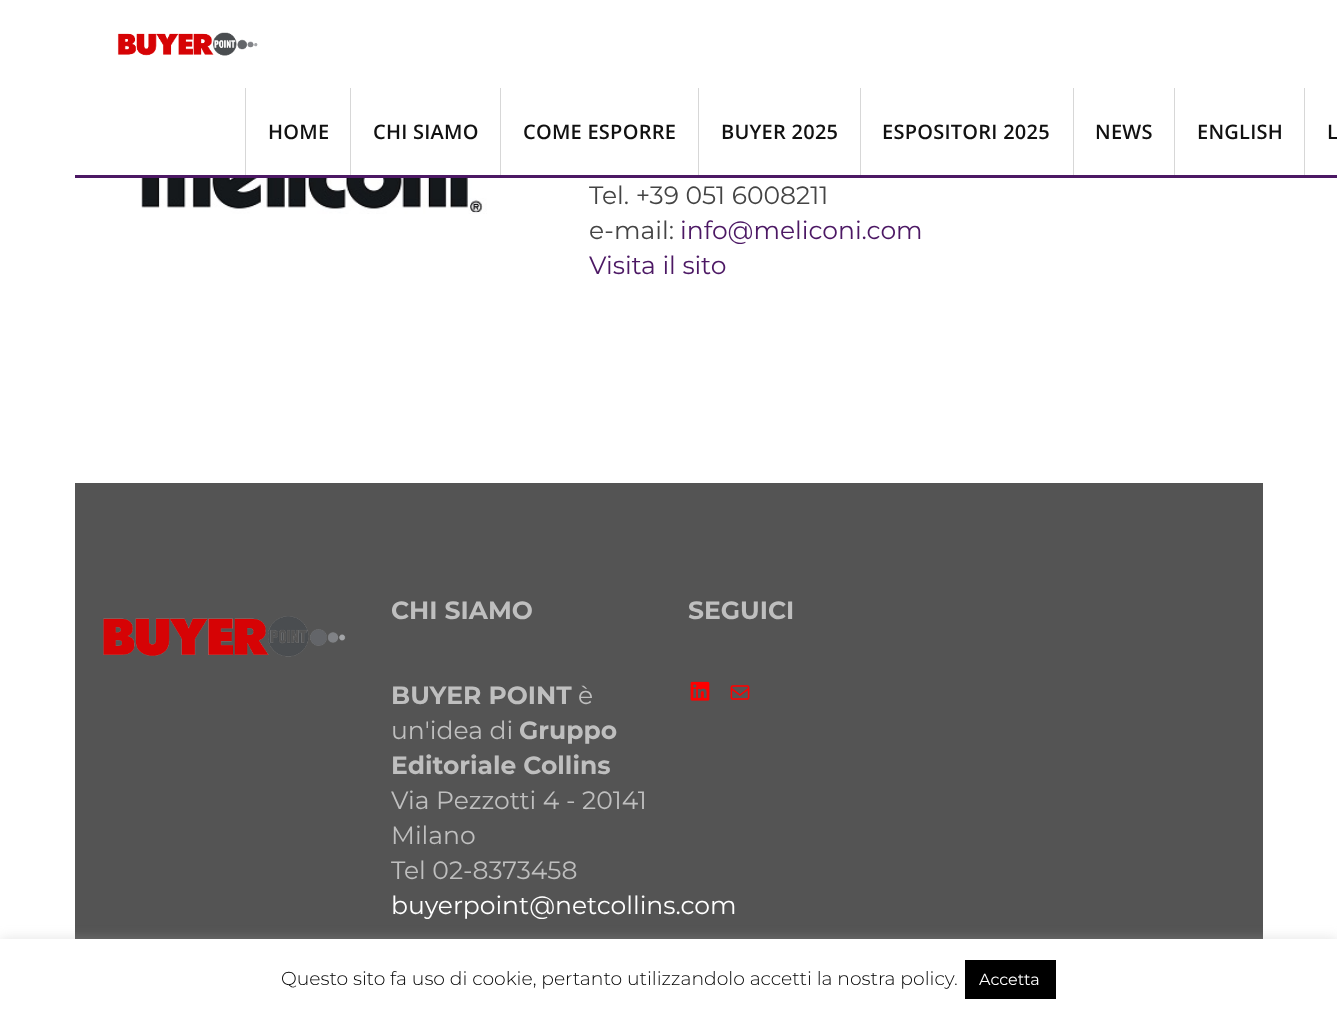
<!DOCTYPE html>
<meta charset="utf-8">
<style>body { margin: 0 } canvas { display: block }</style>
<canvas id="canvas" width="1337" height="1013"></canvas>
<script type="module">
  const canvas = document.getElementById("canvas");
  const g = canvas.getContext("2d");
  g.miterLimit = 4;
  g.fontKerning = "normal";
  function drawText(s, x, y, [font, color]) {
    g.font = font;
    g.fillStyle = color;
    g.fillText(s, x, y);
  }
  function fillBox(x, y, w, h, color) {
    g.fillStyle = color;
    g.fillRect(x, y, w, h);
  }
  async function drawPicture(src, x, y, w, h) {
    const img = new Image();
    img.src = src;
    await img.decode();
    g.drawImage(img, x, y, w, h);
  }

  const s1 = ["600 20px Open Sans", "#111111"];
  const s2 = ["25px Montserrat", "#444444"];
  const s3 = ["25px Montserrat", "#4C1864"];
  const s4 = ["bold 25px Montserrat", "#BFBFBF"];
  const s5 = ["25px Montserrat", "#BFBFBF"];
  const s6 = ["25px Montserrat", "#FFFFFF"];
  const s7 = ["300 18.75px Montserrat", "#000000"];
  const s8 = ["16px Montserrat", "#FFFFFF"];

  fillBox(0, 0, 1337, 1013, "#FFFFFF");
  fillBox(75, 175, 1262, 3, "#4C1864");
  await drawPicture("pic1.png", 117, 32, 141, 24);
  fillBox(245, 88, 1, 87, "#D7D7D7");
  g.letterSpacing = "0.25px";
  drawText("HOME", 268, 139, s1);
  fillBox(350, 88, 1, 87, "#D7D7D7");
  drawText("CHI SIAMO", 373, 139, s1);
  fillBox(500, 88, 1, 87, "#D7D7D7");
  drawText("COME ESPORRE", 523, 139, s1);
  fillBox(698, 88, 1, 87, "#D7D7D7");
  drawText("BUYER 2025", 721, 139, s1);
  fillBox(860, 88, 1, 87, "#D7D7D7");
  drawText("ESPOSITORI 2025", 882, 139, s1);
  fillBox(1073, 88, 1, 87, "#D7D7D7");
  drawText("NEWS", 1095, 139, s1);
  fillBox(1174, 88, 1, 87, "#D7D7D7");
  drawText("ENGLISH", 1197, 139, s1);
  fillBox(1304, 88, 1, 87, "#D7D7D7");
  drawText("L", 1327, 139, s1);
  await drawPicture("pic2.png", 141, 178, 346, 36);
  g.letterSpacing = "0px";
  drawText("Tel. +39 051 6008211", 589, 204, s2);
  drawText("e-mail:", 589, 239, s2);
  drawText("info@meliconi.com", 680, 239, s3);
  drawText("Visita il sito", 589, 274, s3);
  fillBox(75, 483, 1188, 456, "#545454");
  drawText("CHI SIAMO", 391, 619, s4);
  drawText("BUYER POINT", 391, 704, s4);
  drawText("è", 578, 704, s5);
  drawText("un'idea di", 391, 739, s5);
  drawText("Gruppo", 519, 739, s4);
  drawText("Editoriale Collins", 391, 774, s4);
  drawText("Via Pezzotti 4 - 20141", 391, 809, s5);
  drawText("Milano", 391, 844, s5);
  drawText("Tel 02-8373458", 391, 879, s5);
  drawText("buyerpoint@netcollins.com", 391, 914, s6);
  drawText("SEGUICI", 688, 619, s4);
  await drawPicture("pic3.png", 690, 681, 20, 20);
  await drawPicture("pic4.png", 730, 685, 20, 15);
  await drawPicture("pic5.png", 103, 616, 243, 41);
  g.fillStyle = "rgba(172, 171, 171, 0.3)";
  g.filter = "blur(6px)";
  g.beginPath();
  g.rect(0, 938, 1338, 75);
  g.fill();
  g.filter = "none";
  fillBox(0, 939, 1337, 74, "#FFFFFF");
  drawText("Questo sito fa uso di cookie, pertanto utilizzandolo accetti la nostra policy.", 281, 985, s7);
  fillBox(965, 960, 91, 39, "#000000");
  drawText("Accetta", 979, 985, s8);
</script>
